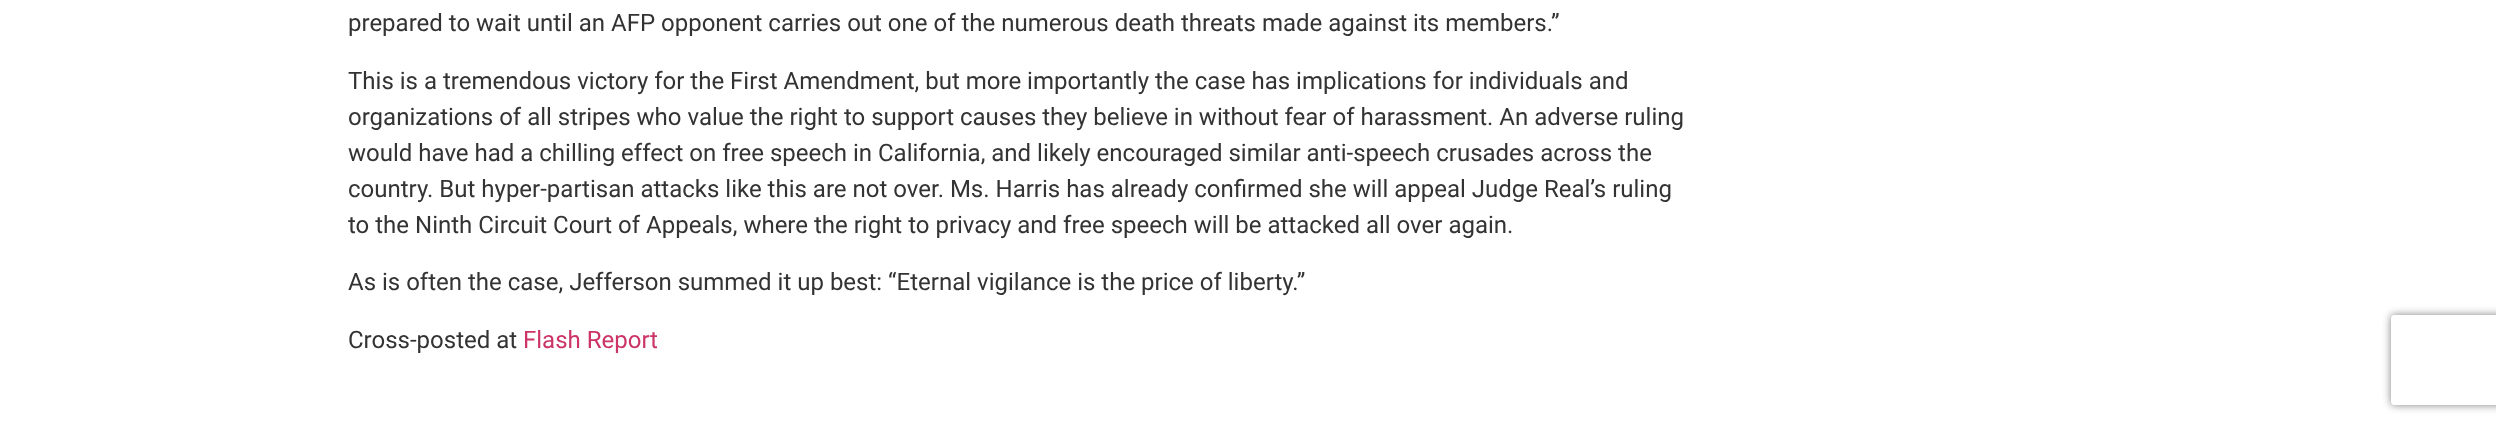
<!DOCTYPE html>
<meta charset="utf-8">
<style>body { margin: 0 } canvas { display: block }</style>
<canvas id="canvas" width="2496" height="426"></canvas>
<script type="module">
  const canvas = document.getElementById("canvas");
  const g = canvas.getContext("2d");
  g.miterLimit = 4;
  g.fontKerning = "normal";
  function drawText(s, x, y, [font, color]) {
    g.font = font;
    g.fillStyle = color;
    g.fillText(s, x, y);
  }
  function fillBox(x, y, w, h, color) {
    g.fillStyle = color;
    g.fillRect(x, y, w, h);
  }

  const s1 = ["24px Roboto", "#333333"];
  const s2 = ["24px Roboto", "#CC3366"];

  fillBox(0, 0, 2496, 426, "#FFFFFF");
  drawText("prepared to wait until an AFP opponent carries out one of the numerous death threats made against its members.”", 348, 31, s1);
  drawText("This is a tremendous victory for the First Amendment, but more importantly the case has implications for individuals and", 348, 89, s1);
  drawText("organizations of all stripes who value the right to support causes they believe in without fear of harassment. An adverse ruling", 348, 125, s1);
  drawText("would have had a chilling effect on free speech in California, and likely encouraged similar anti-speech crusades across the", 348, 161, s1);
  drawText("country. But hyper-partisan attacks like this are not over. Ms. Harris has already confirmed she will appeal Judge Real’s ruling", 348, 197, s1);
  drawText("to the Ninth Circuit Court of Appeals, where the right to privacy and free speech will be attacked all over again.", 348, 233, s1);
  drawText("As is often the case, Jefferson summed it up best: “Eternal vigilance is the price of liberty.”", 348, 290, s1);
  drawText("Cross-posted at", 348, 348, s1);
  drawText("Flash Report", 523, 348, s2);
  g.save();
  g.beginPath();
  g.moveTo(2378, 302);
  g.lineTo(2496, 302);
  g.lineTo(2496, 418);
  g.lineTo(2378, 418);
  g.closePath();
  g.moveTo(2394, 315);
  g.lineTo(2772, 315);
  g.bezierCurveTo(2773.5, 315, 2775, 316.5, 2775, 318);
  g.lineTo(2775, 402);
  g.bezierCurveTo(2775, 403.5, 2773.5, 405, 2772, 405);
  g.lineTo(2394, 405);
  g.bezierCurveTo(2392.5, 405, 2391, 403.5, 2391, 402);
  g.lineTo(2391, 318);
  g.bezierCurveTo(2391, 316.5, 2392.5, 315, 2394, 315);
  g.closePath();
  g.clip("evenodd");
  g.fillStyle = "#808080";
  g.filter = "blur(4px)";
  g.beginPath();
  g.roundRect(2391, 315, 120, 90, 3);
  g.fill();
  g.filter = "none";
  g.restore();
</script>
